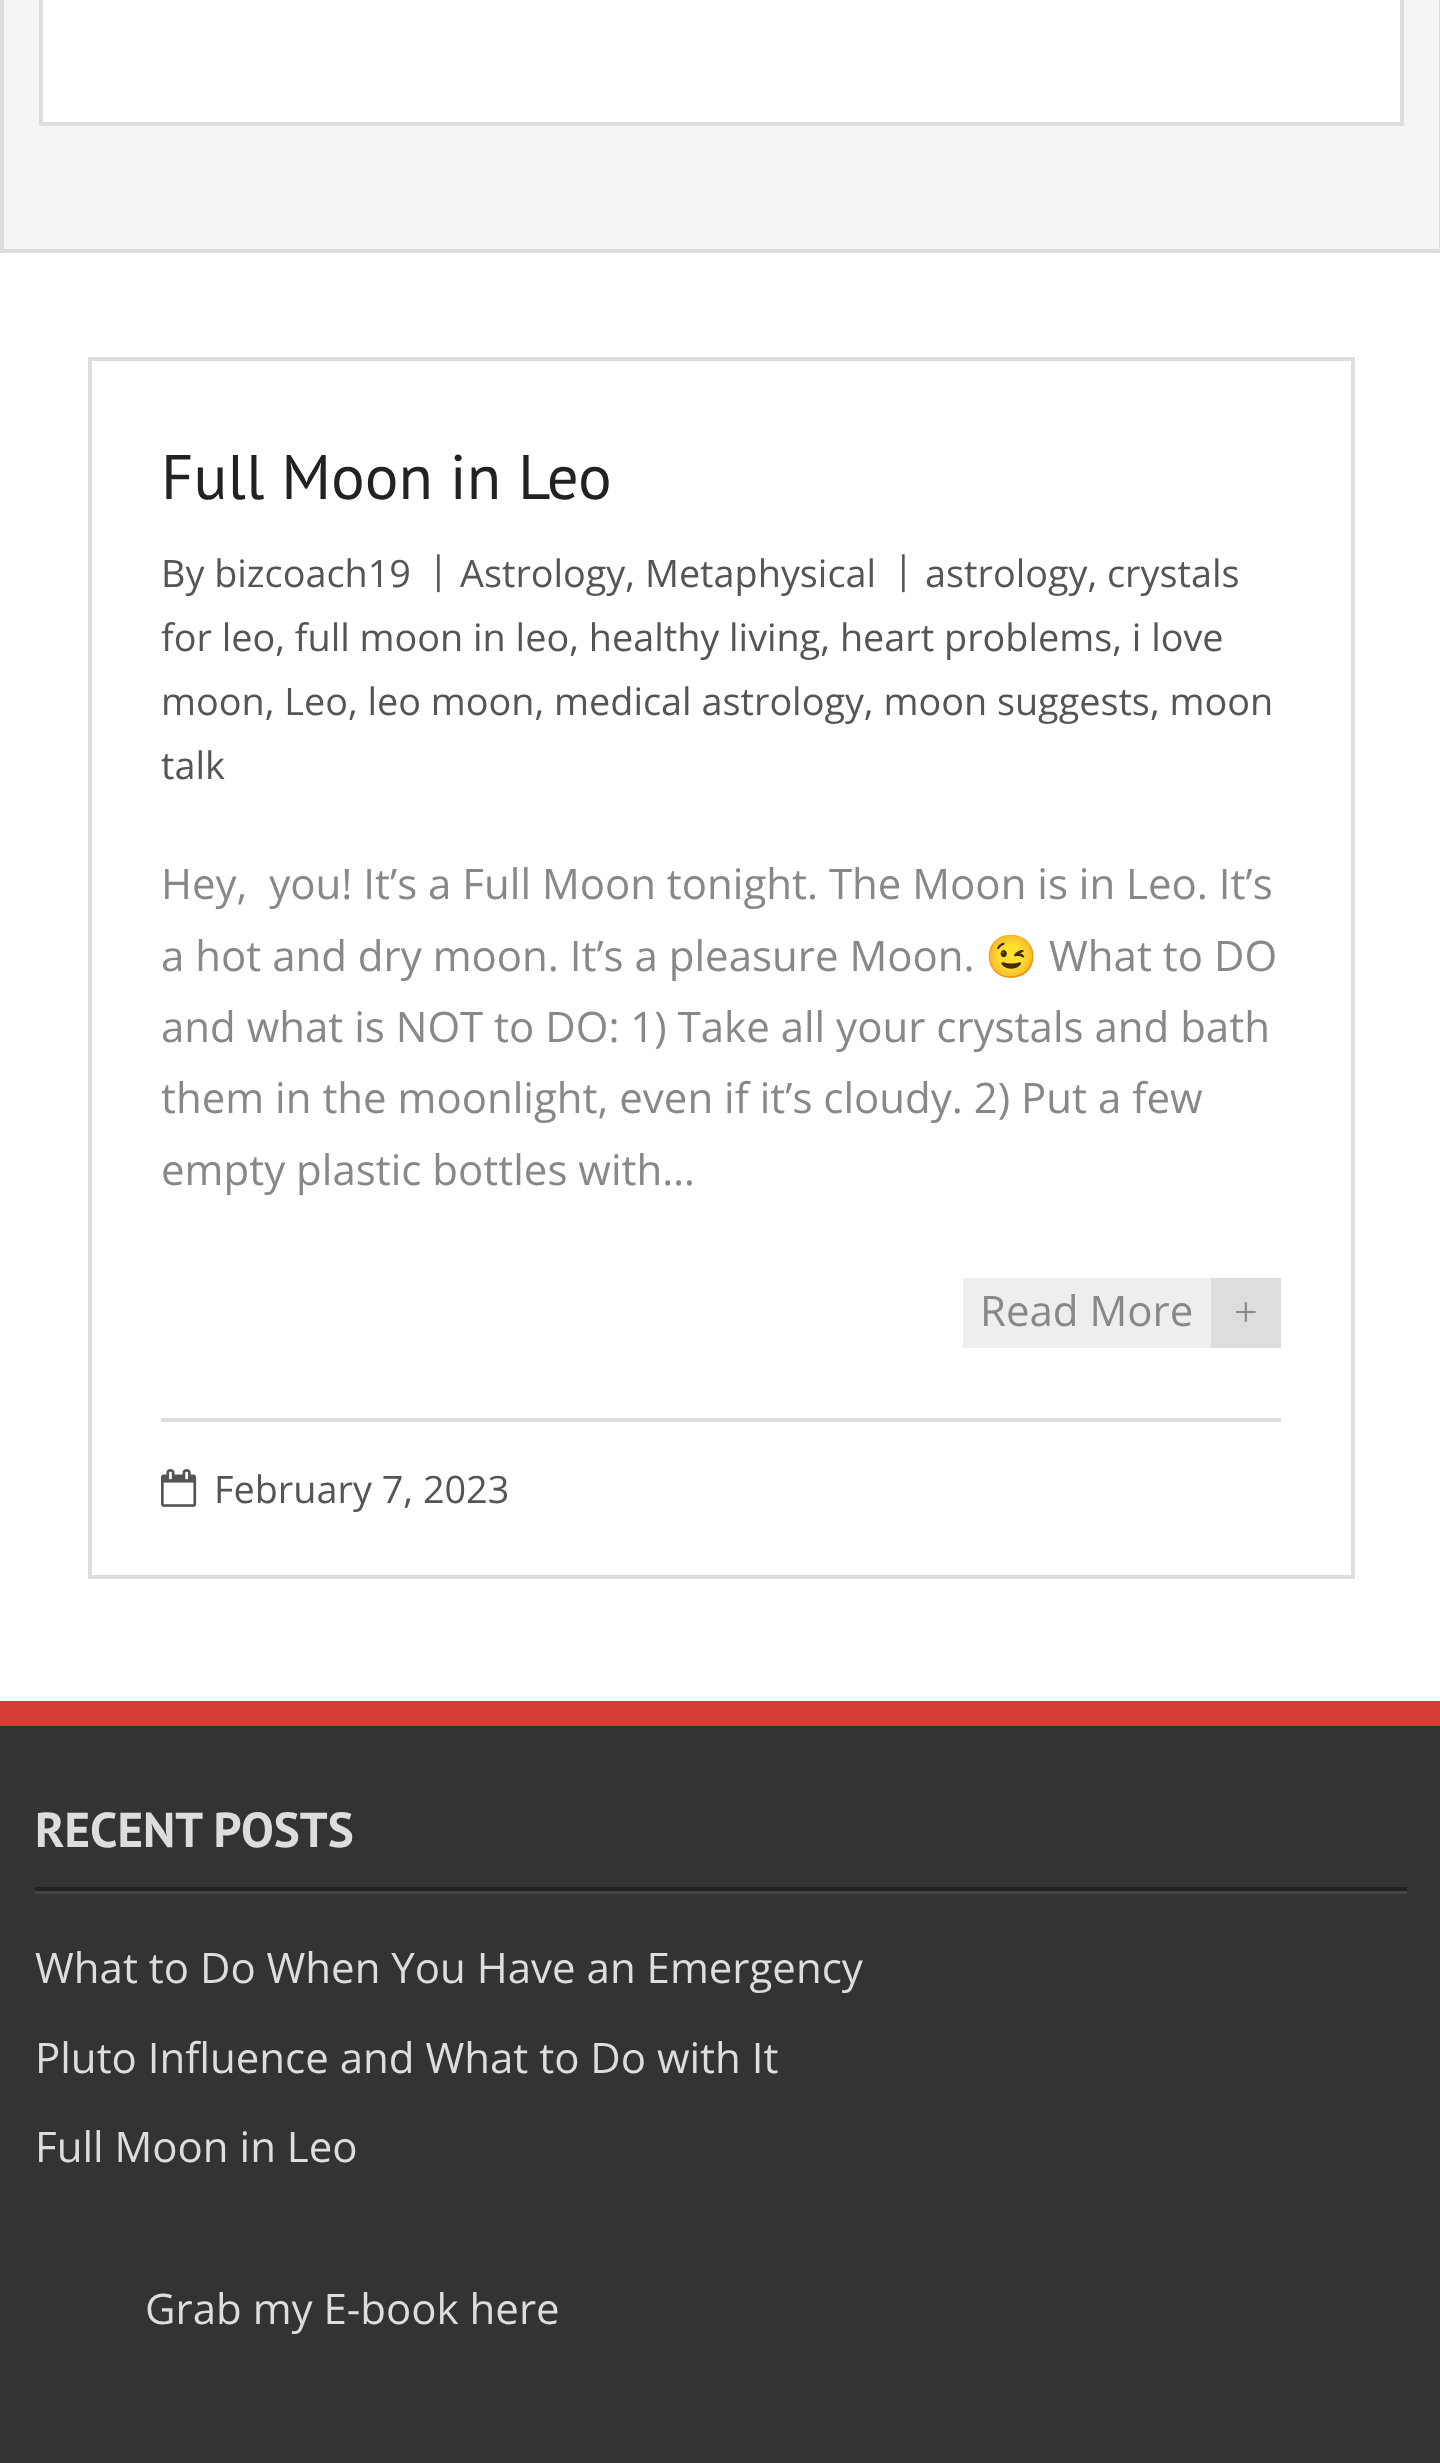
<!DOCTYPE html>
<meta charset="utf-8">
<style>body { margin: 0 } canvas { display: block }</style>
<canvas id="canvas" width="1440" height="2463"></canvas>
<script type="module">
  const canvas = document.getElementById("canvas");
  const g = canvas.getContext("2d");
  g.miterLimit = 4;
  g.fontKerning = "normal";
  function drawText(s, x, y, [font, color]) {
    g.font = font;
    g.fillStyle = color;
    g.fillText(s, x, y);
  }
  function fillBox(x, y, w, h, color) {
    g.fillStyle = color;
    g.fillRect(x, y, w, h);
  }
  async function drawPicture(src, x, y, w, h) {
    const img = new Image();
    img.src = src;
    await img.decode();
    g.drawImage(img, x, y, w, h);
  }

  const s1 = ["63px PT Sans", "#222222"];
  const s2 = ["37.8px Open Sans", "#555555"];
  const s3 = ["42px Open Sans", "#888888"];
  const s4 = ["42px Noto Color Emoji", "#888888"];
  const s5 = ["42px Liberation Serif", "#888888"];
  const s6 = ["bold 49px PT Sans", "#DDDDDD"];
  const s7 = ["42px Open Sans", "#DDDDDD"];

  fillBox(0, 0, 1440, 2463, "#FFFFFF");
  fillBox(4, 0, 1435, 249, "#F5F5F5");
  fillBox(1439, 0, 1, 252, "#DDDDDD");
  fillBox(0, 249, 1440, 4, "#DDDDDD");
  fillBox(0, 0, 4, 252, "#DDDDDD");
  g.fillStyle = "#FFFFFF";
  g.beginPath();
  g.rect(41, -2, 1361, 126);
  g.fill();
  g.strokeStyle = "#DDDDDD";
  g.lineWidth = 4;
  g.stroke();
  g.strokeRect(90, 359, 1263, 1218);
  drawText("Full Moon in Leo", 161, 499, s1);
  drawText("By bizcoach19", 161, 587, s2);
  drawText("|", 428, 583, s2);
  drawText("Astrology, Metaphysical", 460, 587, s2);
  drawText("|", 893, 583, s2);
  drawText("astrology, crystals", 925, 587, s2);
  drawText("for leo, full moon in leo, healthy living, heart problems, i love", 161, 651, s2);
  drawText("moon, Leo, leo moon, medical astrology, moon suggests, moon", 161, 715, s2);
  drawText("talk", 161, 779, s2);
  drawText("Hey,  you! It’s a Full Moon tonight. The Moon is in Leo. It’s", 161, 899, s3);
  drawText("a hot and dry moon. It’s a pleasure Moon.", 161, 971, s3);
  drawText("😉", 985, 971, s4);
  drawText("What to DO", 1049, 971, s3);
  drawText("and what is NOT to DO: 1) Take all your crystals and bath", 161, 1042, s3);
  drawText("them in the moonlight, even if it’s cloudy. 2) Put a few", 161, 1113, s3);
  drawText("empty plastic bottles with…", 161, 1185, s3);
  fillBox(963, 1278, 248, 70, "#EEEEEE");
  drawText("Read More", 980, 1326, s3);
  fillBox(1211, 1278, 70, 70, "#DDDDDD");
  drawText("+", 1234, 1326, s5);
  fillBox(161, 1418, 1120, 4, "#DDDDDD");
  await drawPicture("pic1.png", 161, 1469, 36, 38);
  drawText("February 7, 2023", 214, 1503, s2);
  fillBox(0, 1726, 1440, 737, "#333333");
  fillBox(0, 1701, 1440, 25, "#D33D33");
  fillBox(35, 1891, 1372, 3, "#444444");
  fillBox(35, 1887, 1372, 4, "#222222");
  drawText("RECENT POSTS", 35, 1847, s6);
  drawText("What to Do When You Have an Emergency", 35, 1983, s7);
  drawText("Pluto Influence and What to Do with It", 35, 2073, s7);
  drawText("Full Moon in Leo", 35, 2162, s7);
  drawText("Grab my E-book here", 145, 2324, s7);
</script>
